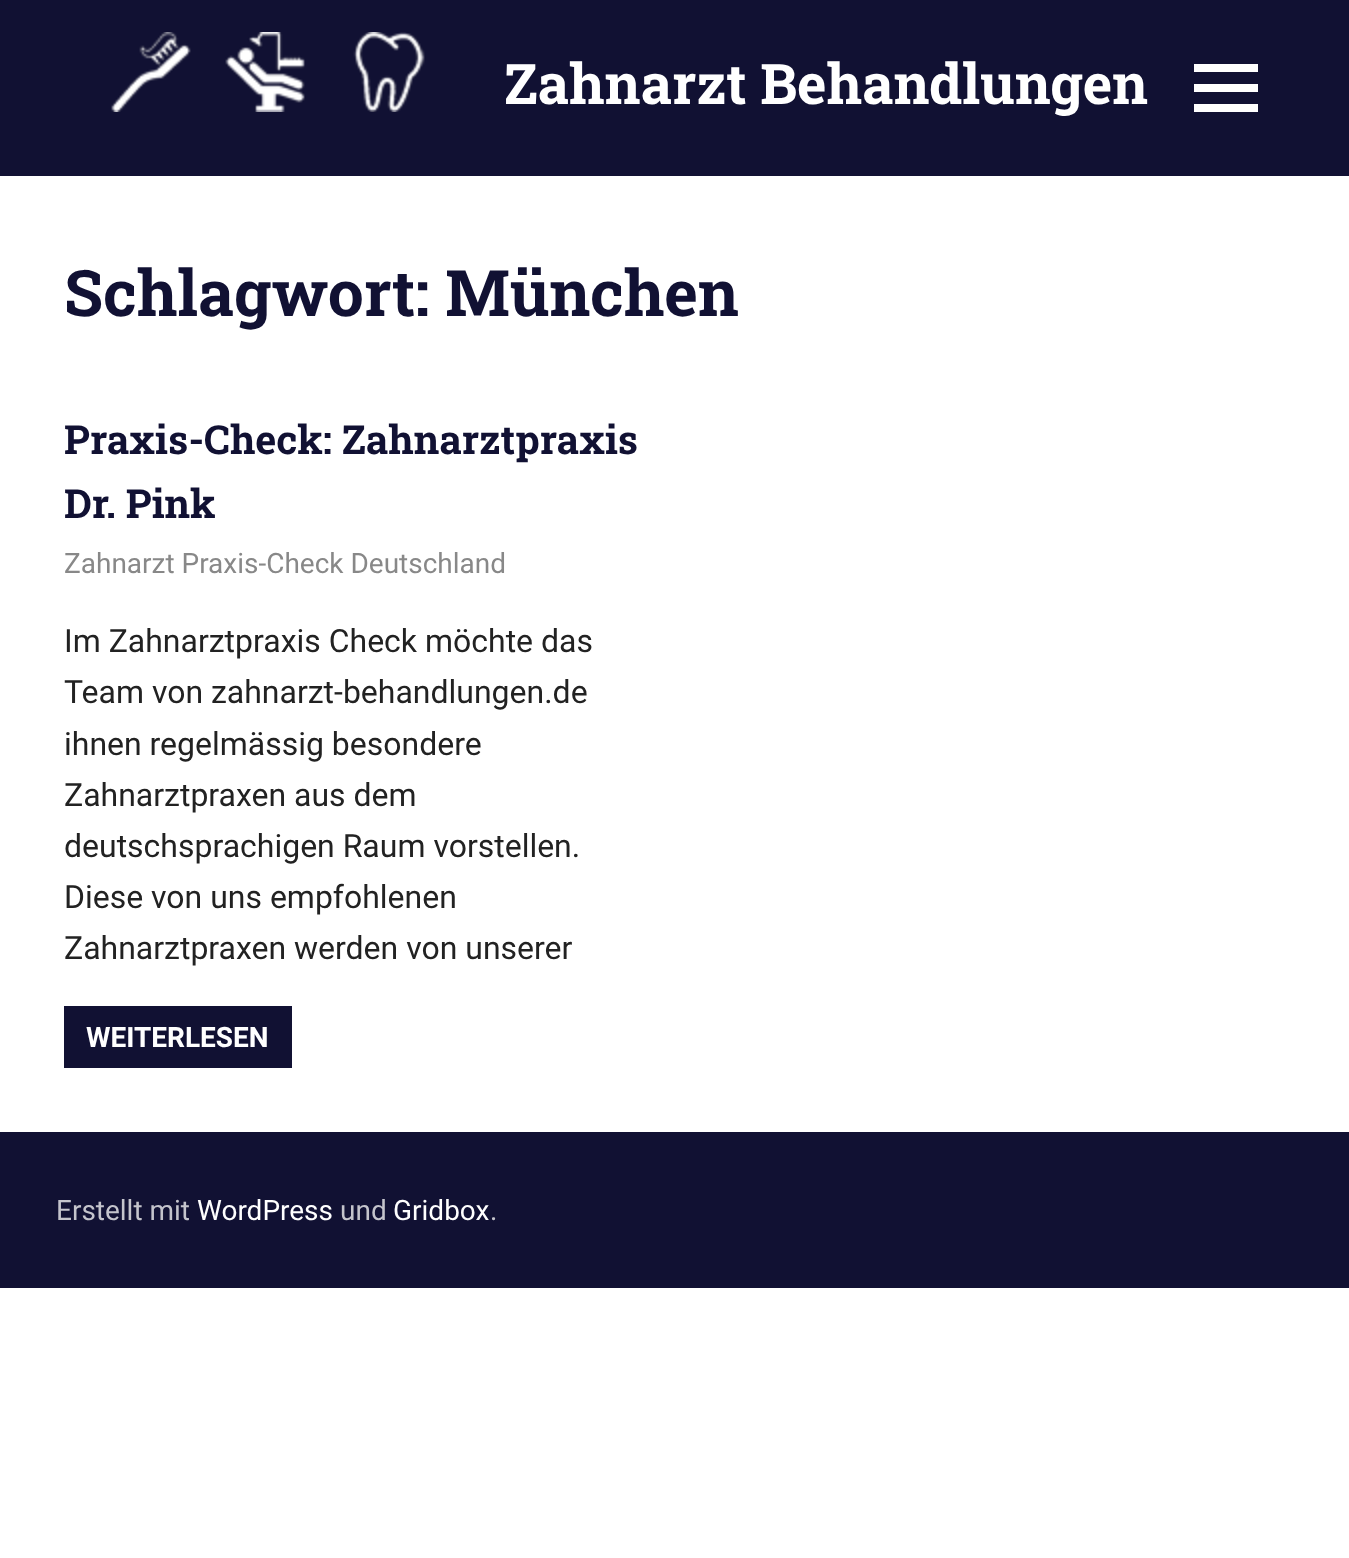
<!DOCTYPE html>
<meta charset="utf-8">
<style>body { margin: 0 } canvas { display: block }</style>
<canvas id="canvas" width="1349" height="1558"></canvas>
<script type="module">
  const canvas = document.getElementById("canvas");
  const g = canvas.getContext("2d");
  g.miterLimit = 4;
  g.fontKerning = "normal";
  function drawText(s, x, y, [font, color]) {
    g.font = font;
    g.fillStyle = color;
    g.fillText(s, x, y);
  }
  function fillBox(x, y, w, h, color) {
    g.fillStyle = color;
    g.fillRect(x, y, w, h);
  }
  async function drawPicture(src, x, y, w, h) {
    const img = new Image();
    img.src = src;
    await img.decode();
    g.drawImage(img, x, y, w, h);
  }

  const s1 = ["bold 56px Roboto Slab", "#FFFFFF"];
  const s2 = ["bold 64px Roboto Slab", "#111133"];
  const s3 = ["bold 40px Roboto Slab", "#111133"];
  const s4 = ["28px Roboto", "#888888"];
  const s5 = ["32px Roboto", "#222222"];
  const s6 = ["bold 28px Roboto", "#FFFFFF"];
  const s7 = ["28px Roboto", "#C4C4CC"];
  const s8 = ["28px Roboto", "#FFFFFF"];

  fillBox(0, 0, 1349, 1558, "#FFFFFF");
  fillBox(0, 0, 1349, 176, "#111133");
  await drawPicture("pic1.png", 111, 32, 314, 80);
  drawText("Zahnarzt Behandlungen", 504, 104, s1);
  g.beginPath();
  g.moveTo(1194, 112);
  g.lineTo(1194, 104);
  g.lineTo(1258, 104);
  g.lineTo(1258, 112);
  g.closePath();
  g.moveTo(1194, 64);
  g.lineTo(1258, 64);
  g.lineTo(1258, 72);
  g.lineTo(1194, 72);
  g.closePath();
  g.moveTo(1194, 92);
  g.lineTo(1194, 84);
  g.lineTo(1258, 84);
  g.lineTo(1258, 92);
  g.closePath();
  g.fill();
  drawText("Schlagwort: München", 64, 316, s2);
  drawText("Praxis-Check: Zahnarztpraxis", 64, 454, s3);
  drawText("Dr. Pink", 64, 518, s3);
  drawText("Zahnarzt Praxis-Check Deutschland", 64, 573, s4);
  drawText("Im Zahnarztpraxis Check möchte das", 64, 652, s5);
  drawText("Team von zahnarzt-behandlungen.de", 64, 703, s5);
  drawText("ihnen regelmässig besondere", 64, 755, s5);
  drawText("Zahnarztpraxen aus dem", 64, 806, s5);
  drawText("deutschsprachigen Raum vorstellen.", 64, 857, s5);
  drawText("Diese von uns empfohlenen", 64, 908, s5);
  drawText("Zahnarztpraxen werden von unserer", 64, 959, s5);
  fillBox(64, 1006, 228, 62, "#111133");
  drawText("WEITERLESEN", 86, 1047, s6);
  fillBox(0, 1132, 1349, 156, "#111133");
  drawText("Erstellt mit", 56, 1220, s7);
  drawText("WordPress", 197, 1220, s8);
  drawText("und", 340, 1220, s7);
  drawText("Gridbox", 393, 1220, s8);
  drawText(".", 490, 1220, s7);
</script>
